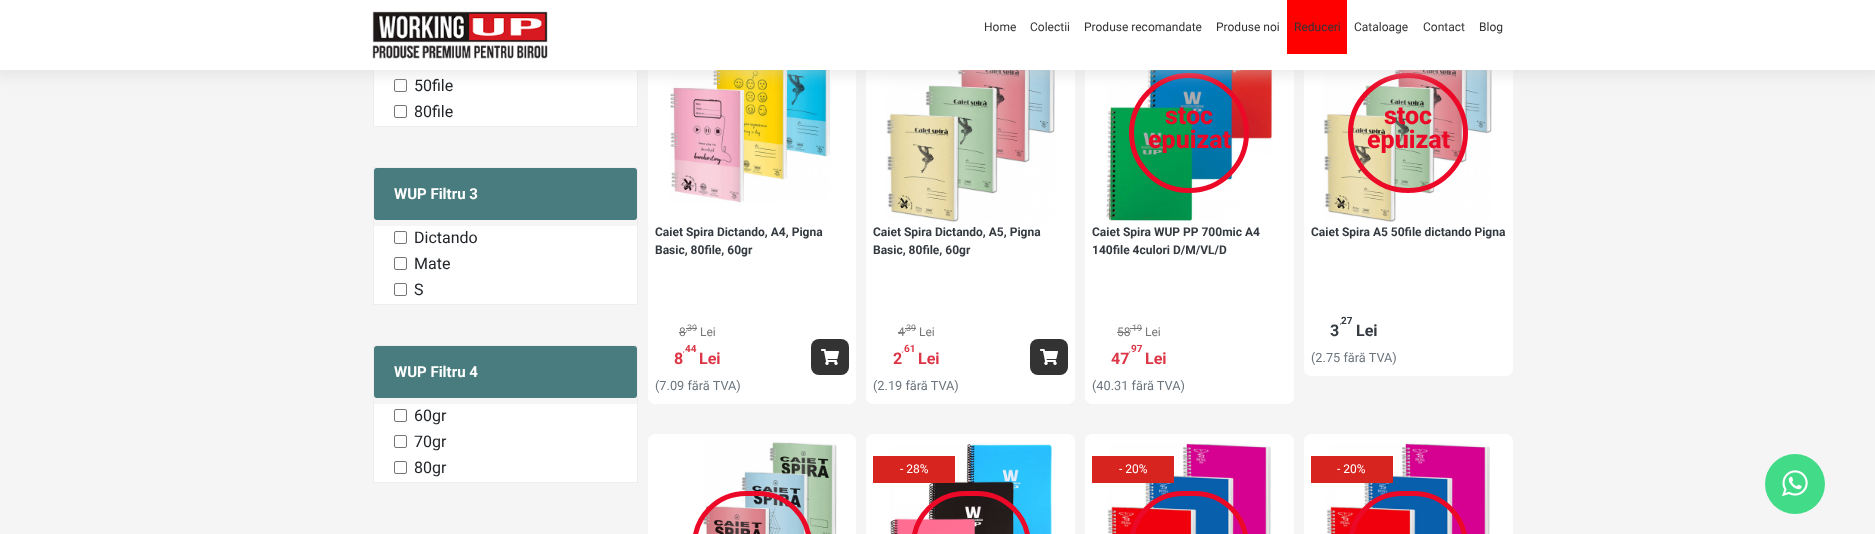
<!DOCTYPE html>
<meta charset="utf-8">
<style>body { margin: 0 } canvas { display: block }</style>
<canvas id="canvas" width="1875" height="534"></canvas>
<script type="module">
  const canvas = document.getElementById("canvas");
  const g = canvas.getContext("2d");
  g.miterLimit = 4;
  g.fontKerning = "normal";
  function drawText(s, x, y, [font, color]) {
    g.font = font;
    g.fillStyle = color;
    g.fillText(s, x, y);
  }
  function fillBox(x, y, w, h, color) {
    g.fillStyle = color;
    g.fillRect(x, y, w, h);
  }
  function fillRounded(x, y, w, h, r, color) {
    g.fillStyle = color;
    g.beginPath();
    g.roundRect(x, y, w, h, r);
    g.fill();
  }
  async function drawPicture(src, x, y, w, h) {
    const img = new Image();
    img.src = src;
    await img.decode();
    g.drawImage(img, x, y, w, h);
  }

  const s1 = ["12px Roboto", "#333333"];
  const s2 = ["16px Roboto", "#212529"];
  const s3 = ["bold 15px Roboto", "#FFFFFF"];
  const s4 = ["bold 12px Roboto", "#343A40"];
  const s5 = ["12px Roboto", "#777777"];
  const s6 = ["9px Roboto", "#777777"];
  const s7 = ["7px Roboto", "#777777"];
  const s8 = ["bold 10px Roboto", "#DC3545"];
  const s9 = ["bold 16px Roboto", "#DC3545"];
  const s10 = ["8px Roboto", "#DC3545"];
  const s11 = ["12.75px Roboto", "#6C757D"];
  const s12 = ["800 25px Roboto", "#EC0928"];
  const s13 = ["bold 10px Roboto", "#343A40"];
  const s14 = ["bold 16px Roboto", "#343A40"];
  const s15 = ["8px Roboto", "#343A40"];
  const s16 = ["12px Roboto", "#FFFFFF"];

  fillBox(0, 0, 1875, 534, "#F5F5F5");
  g.strokeStyle = "#EEEEEE";
  g.strokeRect(373.5, -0.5, 264, 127);
  fillBox(374, 70, 263, 56, "#FFFFFF");
  g.beginPath();
  g.roundRect(394.5, 79.5, 12, 12, 1.5);
  g.strokeStyle = "#767676";
  g.stroke();
  fillRounded(648, 16, 208, 388, 7, "#FFFFFF");
  await drawPicture("pic2.png", 670, 70, 160, 133);
  fillRounded(866, 16, 209, 388, 7, "#FFFFFF");
  await drawPicture("pic4.png", 886, 70, 169, 152);
  fillRounded(1085, 16, 209, 388, 7, "#FFFFFF");
  await drawPicture("pic5.png", 1106, 70, 167, 152);
  g.beginPath();
  g.arc(1189, 133, 57.5, 0, Math.PI * 2);
  g.strokeStyle = "#EC0928";
  g.lineWidth = 5;
  g.stroke();
  fillRounded(1304, 16, 209, 360, 7, "#FFFFFF");
  await drawPicture("pic6.png", 1323, 70, 169, 152);
  g.beginPath();
  g.arc(1408, 133, 57.5, 0, Math.PI * 2);
  g.stroke();
  g.fillStyle = "rgba(204, 204, 204, 0.38)";
  g.filter = "blur(6.5px)";
  g.beginPath();
  g.rect(-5, -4, 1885, 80);
  g.fill();
  g.filter = "none";
  fillBox(0, 0, 1875, 70, "#FFFFFF");
  await drawPicture("pic1.png", 372, 11, 176, 48);
  drawText("Home", 984, 31, s1);
  drawText("Colectii", 1030, 31, s1);
  drawText("Produse recomandate", 1084, 31, s1);
  drawText("Produse noi", 1216, 31, s1);
  fillBox(1287, 0, 60, 54, "#FF0000");
  drawText("Reduceri", 1294, 31, s1);
  drawText("Cataloage", 1354, 31, s1);
  drawText("Contact", 1423, 31, s1);
  drawText("Blog", 1479, 31, s1);
  drawText("50file", 414, 91, s2);
  g.beginPath();
  g.roundRect(394.5, 105.5, 12, 12, 1.5);
  g.strokeStyle = "#767676";
  g.lineWidth = 1;
  g.stroke();
  drawText("80file", 414, 117, s2);
  g.strokeStyle = "#EEEEEE";
  g.strokeRect(373.5, 167.5, 264, 137);
  fillRounded(374, 168, 263, 52, 3, "#497C7E");
  drawText("WUP Filtru 3", 394, 199, s3);
  fillBox(374, 226, 263, 78, "#FFFFFF");
  g.beginPath();
  g.roundRect(394.5, 231.5, 12, 12, 1.5);
  g.strokeStyle = "#767676";
  g.stroke();
  drawText("Dictando", 414, 243, s2);
  g.beginPath();
  g.roundRect(394.5, 257.5, 12, 12, 1.5);
  g.stroke();
  drawText("Mate", 414, 269, s2);
  g.beginPath();
  g.roundRect(394.5, 283.5, 12, 12, 1.5);
  g.stroke();
  drawText("S", 414, 295, s2);
  g.strokeStyle = "#EEEEEE";
  g.strokeRect(373.5, 345.5, 264, 137);
  fillRounded(374, 346, 263, 52, 3, "#497C7E");
  drawText("WUP Filtru 4", 394, 377, s3);
  fillBox(374, 404, 263, 78, "#FFFFFF");
  g.beginPath();
  g.roundRect(394.5, 409.5, 12, 12, 1.5);
  g.strokeStyle = "#767676";
  g.stroke();
  drawText("60gr", 414, 421, s2);
  g.beginPath();
  g.roundRect(394.5, 435.5, 12, 12, 1.5);
  g.stroke();
  drawText("70gr", 414, 447, s2);
  g.beginPath();
  g.roundRect(394.5, 461.5, 12, 12, 1.5);
  g.stroke();
  drawText("80gr", 414, 473, s2);
  drawText("Caiet Spira Dictando, A4, Pigna", 655, 236, s4);
  drawText("Basic, 80file, 60gr", 655, 254, s4);
  drawText("8", 679, 336, s5);
  fillBox(679, 332, 7, 1, "#777777");
  drawText("39", 687, 331, s6);
  fillBox(686, 328, 1, 1, "#777777");
  fillBox(687, 328, 10, 1, "#777777");
  drawText("Lei", 700, 336, s5);
  drawText(",", 686, 331, s7);
  drawText("44", 685, 352, s8);
  drawText("8", 674, 364, s9);
  drawText(",", 683, 352, s10);
  drawText("Lei", 699, 364, s9);
  drawText("(7.09 fără TVA)", 655, 390, s11);
  fillRounded(811, 339, 38, 36, 8, "#333333");
  await drawPicture("pic3.png", 821, 349, 18, 16);
  drawText("Caiet Spira Dictando, A5, Pigna", 873, 236, s4);
  drawText("Basic, 80file, 60gr", 873, 254, s4);
  drawText("4", 898, 336, s5);
  fillBox(898, 332, 7, 1, "#777777");
  drawText("39", 906, 331, s6);
  fillBox(905, 328, 1, 1, "#777777");
  fillBox(906, 328, 10, 1, "#777777");
  drawText("Lei", 919, 336, s5);
  drawText(",", 905, 331, s7);
  drawText("2", 893, 364, s9);
  drawText(",", 902, 352, s10);
  drawText("61", 904, 352, s8);
  drawText("Lei", 918, 364, s9);
  drawText("(2.19 fără TVA)", 873, 390, s11);
  fillRounded(1030, 339, 38, 36, 8, "#333333");
  await drawPicture("pic3.png", 1040, 349, 18, 16);
  drawText("stoc", 1165, 124, s12);
  drawText("epuizat", 1148, 148, s12);
  drawText("Caiet Spira WUP PP 700mic A4", 1092, 236, s4);
  drawText("140file 4culori D/M/VL/D", 1092, 254, s4);
  drawText("58", 1117, 336, s5);
  fillBox(1117, 332, 13, 1, "#777777");
  drawText(",", 1130, 331, s7);
  drawText("19", 1132, 331, s6);
  fillBox(1130, 328, 2, 1, "#777777");
  fillBox(1132, 328, 10, 1, "#777777");
  drawText("Lei", 1145, 336, s5);
  drawText("47", 1111, 364, s9);
  drawText(",", 1129, 352, s10);
  drawText("97", 1131, 352, s8);
  drawText("Lei", 1145, 364, s9);
  drawText("(40.31 fără TVA)", 1092, 390, s11);
  drawText("stoc", 1384, 124, s12);
  drawText("epuizat", 1367, 148, s12);
  drawText("Caiet Spira A5 50file dictando Pigna", 1311, 236, s4);
  drawText("27", 1341, 324, s13);
  drawText("3", 1330, 336, s14);
  drawText(",", 1340, 324, s15);
  drawText("Lei", 1356, 336, s14);
  drawText("(2.75 fără TVA)", 1311, 362, s11);
  fillRounded(648, 434, 208, 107, 7, "#FFFFFF");
  await drawPicture("pic7.png", 703, 441, 134, 93);
  g.beginPath();
  g.roundRect(694.5, 493.5, 115, 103, 57.5);
  g.strokeStyle = "#EC0928";
  g.lineWidth = 5;
  g.stroke();
  fillRounded(866, 434, 209, 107, 7, "#FFFFFF");
  await drawPicture("pic8.png", 890, 444, 162, 90);
  g.beginPath();
  g.roundRect(913.5, 493.5, 115, 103, 57.5);
  g.stroke();
  fillBox(873, 456, 82, 27, "#D8241F");
  drawText("- 28%", 900, 473, s16);
  fillRounded(1085, 434, 209, 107, 7, "#FFFFFF");
  await drawPicture("pic9.png", 1107, 443, 164, 91);
  g.beginPath();
  g.roundRect(1131.5, 493.5, 115, 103, 57.5);
  g.stroke();
  fillBox(1092, 456, 82, 27, "#D8241F");
  drawText("- 20%", 1119, 473, s16);
  fillRounded(1304, 434, 209, 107, 7, "#FFFFFF");
  await drawPicture("pic9.png", 1326, 443, 164, 91);
  g.beginPath();
  g.roundRect(1350.5, 493.5, 115, 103, 57.5);
  g.stroke();
  fillBox(1311, 456, 82, 27, "#D8241F");
  drawText("- 20%", 1337, 473, s16);
  g.fillStyle = "#42DB87";
  g.beginPath();
  g.arc(1795, 484, 30, 0, Math.PI * 2);
  g.fill();
  await drawPicture("pic10.png", 1782, 470, 26, 27);
</script>
